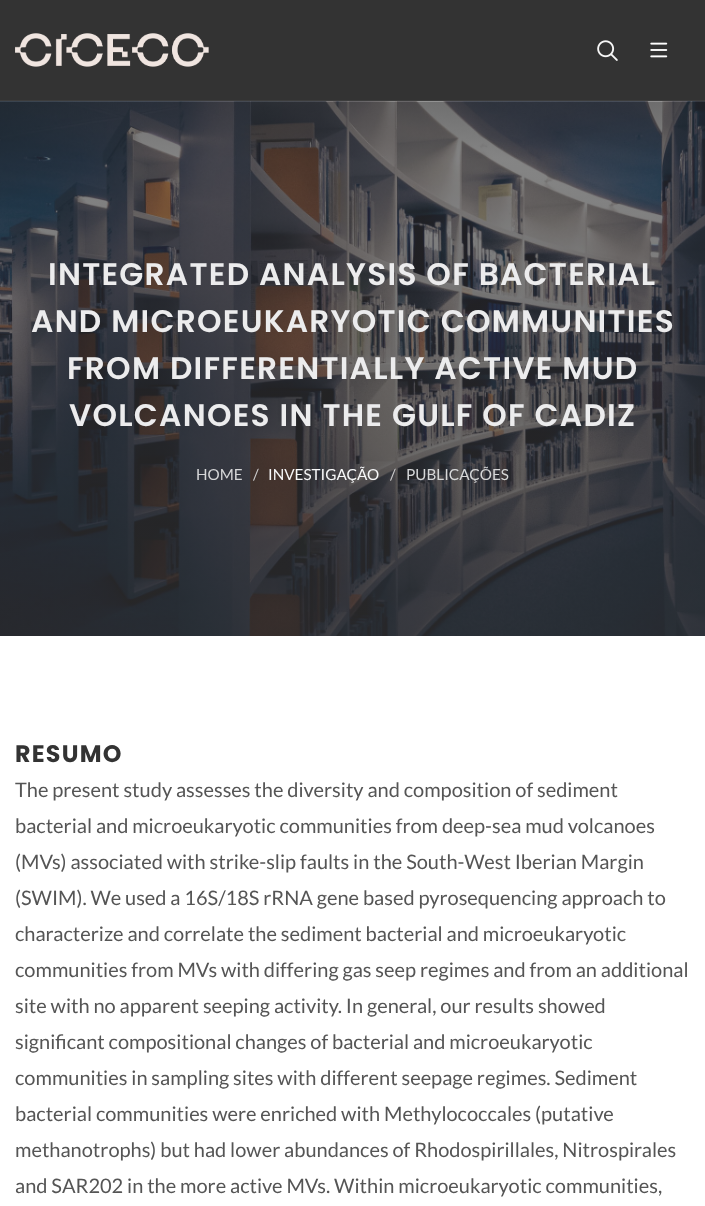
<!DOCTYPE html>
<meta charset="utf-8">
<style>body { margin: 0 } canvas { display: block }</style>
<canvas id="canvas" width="705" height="1206"></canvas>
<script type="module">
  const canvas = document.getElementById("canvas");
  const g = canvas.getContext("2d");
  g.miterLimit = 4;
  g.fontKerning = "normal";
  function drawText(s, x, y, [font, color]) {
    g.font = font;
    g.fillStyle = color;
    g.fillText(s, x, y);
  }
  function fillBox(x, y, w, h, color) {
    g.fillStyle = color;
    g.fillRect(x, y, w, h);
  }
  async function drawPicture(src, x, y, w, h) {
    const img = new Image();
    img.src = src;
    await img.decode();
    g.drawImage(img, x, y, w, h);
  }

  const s1 = ["600 31.25px Poppins", "#ECECED"];
  const s2 = ["15.25px Lato", "#D6D7D8"];
  const s3 = ["15.25px Lato", "#CCCCCC"];
  const s4 = ["15.25px Lato", "#F8F9FA"];
  const s5 = ["bold 23.75px Poppins", "#333333"];
  const s6 = ["20px Lato", "#555555"];

  fillBox(0, 0, 705, 1206, "#FFFFFF");
  fillBox(0, 0, 705, 100, "#333333");
  fillBox(0, 100, 705, 1, "#3D3D3D");
  await drawPicture("pic1.png", 15, 33, 194, 34);
  await drawPicture("pic2.png", 597, 40, 21, 21);
  await drawPicture("pic3.png", 650, 42, 18, 16);
  await drawPicture("pic4.png", 0, 101, 705, 535);
  g.letterSpacing = "1.25px";
  drawText("INTEGRATED ANALYSIS OF BACTERIAL", 48, 285, s1);
  drawText("AND MICROEUKARYOTIC COMMUNITIES", 31, 332, s1);
  drawText("FROM DIFFERENTIALLY ACTIVE MUD", 67, 379, s1);
  drawText("VOLCANOES IN THE GULF OF CADIZ", 69, 426, s1);
  g.letterSpacing = "0px";
  drawText("HOME", 196, 480, s2);
  drawText("/", 253, 480, s3);
  drawText("INVESTIGAÇÃO", 268, 480, s4);
  drawText("/", 390, 480, s3);
  drawText("PUBLICAÇÕES", 406, 480, s2);
  g.letterSpacing = "1.25px";
  drawText("RESUMO", 15, 762, s5);
  g.letterSpacing = "0px";
  drawText("The present study assesses the diversity and composition of sediment", 15, 797, s6);
  drawText("bacterial and microeukaryotic communities from deep-sea mud volcanoes", 15, 833, s6);
  drawText("(MVs) associated with strike-slip faults in the South-West Iberian Margin", 15, 869, s6);
  drawText("(SWIM). We used a 16S/18S rRNA gene based pyrosequencing approach to", 15, 905, s6);
  drawText("characterize and correlate the sediment bacterial and microeukaryotic", 15, 941, s6);
  drawText("communities from MVs with differing gas seep regimes and from an additional", 15, 977, s6);
  drawText("site with no apparent seeping activity. In general, our results showed", 15, 1013, s6);
  drawText("significant compositional changes of bacterial and microeukaryotic", 15, 1049, s6);
  drawText("communities in sampling sites with different seepage regimes. Sediment", 15, 1085, s6);
  drawText("bacterial communities were enriched with Methylococcales (putative", 15, 1121, s6);
  drawText("methanotrophs) but had lower abundances of Rhodospirillales, Nitrospirales", 15, 1157, s6);
  drawText("and SAR202 in the more active MVs. Within microeukaryotic communities,", 15, 1193, s6);
</script>
